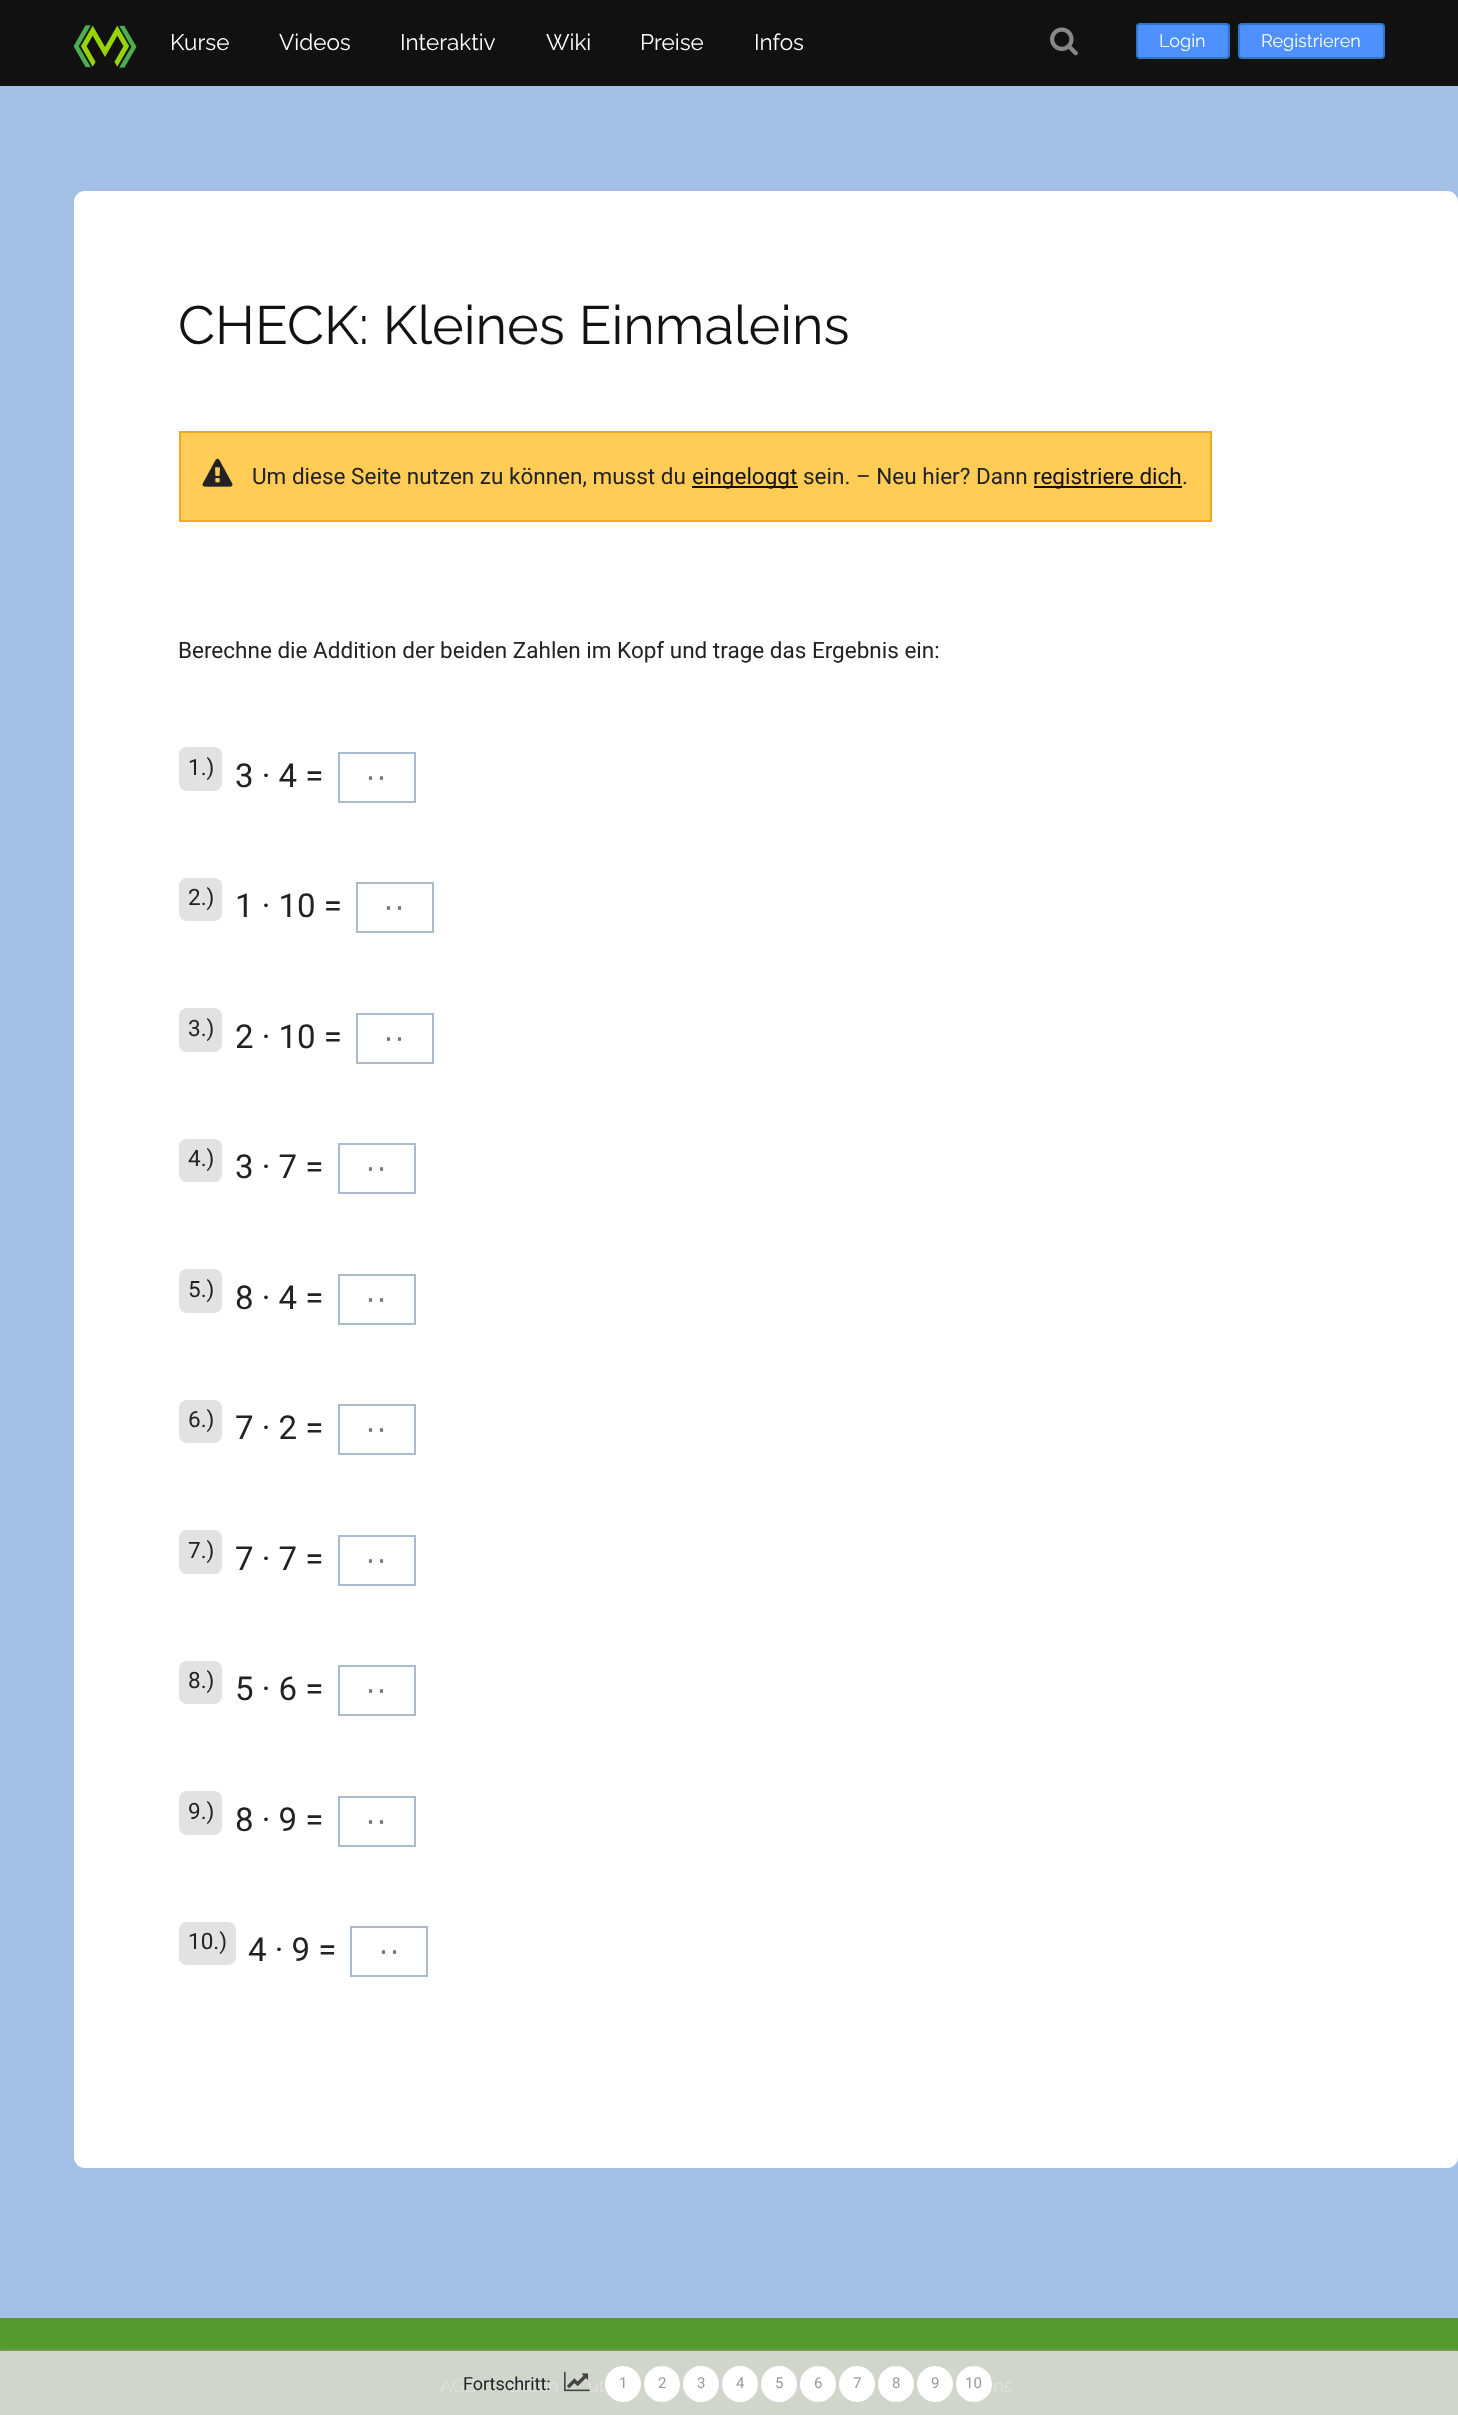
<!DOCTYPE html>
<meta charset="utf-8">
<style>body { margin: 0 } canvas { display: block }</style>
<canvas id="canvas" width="1458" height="2415"></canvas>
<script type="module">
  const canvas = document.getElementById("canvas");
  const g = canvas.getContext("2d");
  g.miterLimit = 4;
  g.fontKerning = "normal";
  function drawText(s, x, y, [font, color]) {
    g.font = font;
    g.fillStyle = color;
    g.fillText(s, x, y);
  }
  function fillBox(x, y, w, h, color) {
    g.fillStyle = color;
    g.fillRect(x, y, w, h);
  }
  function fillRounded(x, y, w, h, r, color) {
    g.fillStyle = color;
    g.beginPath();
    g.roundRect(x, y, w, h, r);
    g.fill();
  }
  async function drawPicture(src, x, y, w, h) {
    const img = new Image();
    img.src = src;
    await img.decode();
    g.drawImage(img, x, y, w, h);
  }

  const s1 = ["100 22.5px Raleway", "#FFFFFF"];
  const s2 = ["100 18px Raleway", "#FFFFFF"];
  const s3 = ["100 54px Raleway", "#121212"];
  const s4 = ["22.5px Roboto", "#222222"];
  const s5 = ["22.5px Roboto", "#121212"];
  const s6 = ["33px Roboto", "#222222"];
  const s7 = ["33px Liberation Sans", "#757575"];
  const s8 = ["100 18px Raleway", "#E0E0E0"];
  const s9 = ["18px Roboto", "#222222"];
  const s10 = ["15px Roboto", "#999999"];

  fillBox(0, 0, 1458, 2415, "#A5C0E7");
  fillBox(0, 0, 1458, 86, "#111111");
  await drawPicture("pic1.png", 74, 25, 63, 43);
  drawText("Kurse", 170, 50, s1);
  drawText("Videos", 279, 50, s1);
  drawText("Interaktiv", 400, 50, s1);
  drawText("Wiki", 546, 50, s1);
  drawText("Preise", 640, 50, s1);
  drawText("Infos", 754, 50, s1);
  await drawPicture("pic2.png", 1050, 27, 28, 29);
  g.fillStyle = "#4D90FE";
  g.beginPath();
  g.roundRect(1137, 24, 92, 34, 3);
  g.fill();
  g.strokeStyle = "#2B78C5";
  g.lineWidth = 2;
  g.stroke();
  drawText("Login", 1159, 47, s2);
  g.fillStyle = "#4D90FE";
  g.beginPath();
  g.roundRect(1239, 24, 145, 34, 3);
  g.fill();
  g.stroke();
  drawText("Registrieren", 1261, 47, s2);
  fillRounded(74, 191, 1384, 1977, 11, "#FFFFFF");
  drawText("CHECK: Kleines Einmaleins", 178, 344, s3);
  g.fillStyle = "#FFCC55";
  g.beginPath();
  g.rect(180, 432, 1031, 89);
  g.fill();
  g.strokeStyle = "#EEAA22";
  g.stroke();
  await drawPicture("pic3.png", 202, 458, 31, 29);
  drawText("Um diese Seite nutzen zu können, musst du", 252, 484, s4);
  fillBox(692, 486, 106, 2, "#111111");
  drawText("eingeloggt", 692, 484, s5);
  drawText("sein. – Neu hier? Dann", 803, 484, s4);
  fillBox(1034, 486, 148, 2, "#111111");
  drawText("registriere dich", 1033, 484, s5);
  drawText(".", 1182, 484, s4);
  drawText("Berechne die Addition der beiden Zahlen im Kopf und trage das Ergebnis ein:", 178, 658, s4);
  fillRounded(179, 747, 43, 44, 8, "#E2E2E2");
  drawText("1.)", 188, 775, s4);
  drawText("3 · 4 =", 235, 787, s6);
  g.strokeStyle = "#AABBCC";
  g.strokeRect(339, 753, 76, 49);
  drawText("··", 365, 787, s7);
  fillRounded(179, 878, 43, 43, 8, "#E2E2E2");
  drawText("2.)", 188, 905, s4);
  drawText("1 · 10 =", 235, 917, s6);
  g.strokeRect(357, 883, 76, 49);
  drawText("··", 383, 917, s7);
  fillRounded(179, 1008, 43, 44, 8, "#E2E2E2");
  drawText("3.)", 188, 1036, s4);
  drawText("2 · 10 =", 235, 1048, s6);
  g.strokeRect(357, 1014, 76, 49);
  drawText("··", 383, 1048, s7);
  fillRounded(179, 1139, 43, 43, 8, "#E2E2E2");
  drawText("4.)", 188, 1166, s4);
  drawText("3 · 7 =", 235, 1178, s6);
  g.strokeRect(339, 1144, 76, 49);
  drawText("··", 365, 1178, s7);
  fillRounded(179, 1269, 43, 44, 8, "#E2E2E2");
  drawText("5.)", 188, 1297, s4);
  drawText("8 · 4 =", 235, 1309, s6);
  g.strokeRect(339, 1275, 76, 49);
  drawText("··", 365, 1309, s7);
  fillRounded(179, 1400, 43, 43, 8, "#E2E2E2");
  drawText("6.)", 188, 1427, s4);
  drawText("7 · 2 =", 235, 1439, s6);
  g.strokeRect(339, 1405, 76, 49);
  drawText("··", 365, 1439, s7);
  fillRounded(179, 1530, 43, 44, 8, "#E2E2E2");
  drawText("7.)", 188, 1558, s4);
  drawText("7 · 7 =", 235, 1570, s6);
  g.strokeRect(339, 1536, 76, 49);
  drawText("··", 365, 1570, s7);
  fillRounded(179, 1661, 43, 43, 8, "#E2E2E2");
  drawText("8.)", 188, 1688, s4);
  drawText("5 · 6 =", 235, 1700, s6);
  g.strokeRect(339, 1666, 76, 49);
  drawText("··", 365, 1700, s7);
  fillRounded(179, 1791, 43, 44, 8, "#E2E2E2");
  drawText("9.)", 188, 1819, s4);
  drawText("8 · 9 =", 235, 1831, s6);
  g.strokeRect(339, 1797, 76, 49);
  drawText("··", 365, 1831, s7);
  fillRounded(179, 1922, 57, 43, 8, "#E2E2E2");
  drawText("10.)", 188, 1949, s4);
  drawText("4 · 9 =", 248, 1961, s6);
  g.strokeRect(351, 1927, 76, 49);
  drawText("··", 378, 1961, s7);
  fillBox(0, 2318, 1458, 33, "#56992F");
  fillBox(0, 2351, 1458, 64, "#D0D6CC");
  g.save();
  g.beginPath();
  g.rect(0, 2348, 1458, 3);
  g.clip();
  g.fillStyle = "#AAAAAA";
  g.filter = "blur(1.5px)";
  g.beginPath();
  g.rect(0, 2351, 1458, 64);
  g.fill();
  g.filter = "none";
  g.restore();
  drawText("AGB", 440, 2392, s8);
  drawText("Daten", 509, 2392, s8);
  drawText("Fortschritt:", 463, 2390, s9);
  drawText("ut", 588, 2392, s8);
  await drawPicture("pic4.png", 564, 2371, 26, 21);
  g.fillStyle = "#FFFFFF";
  g.beginPath();
  g.arc(623, 2384, 18, 0, Math.PI * 2);
  g.fill();
  drawText("1", 619, 2388, s10);
  g.fillStyle = "#FFFFFF";
  g.beginPath();
  g.arc(662, 2384, 18, 0, Math.PI * 2);
  g.fill();
  drawText("2", 658, 2388, s10);
  g.fillStyle = "#FFFFFF";
  g.beginPath();
  g.arc(701, 2384, 18, 0, Math.PI * 2);
  g.fill();
  drawText("3", 697, 2388, s10);
  g.fillStyle = "#FFFFFF";
  g.beginPath();
  g.arc(740, 2384, 18, 0, Math.PI * 2);
  g.fill();
  drawText("4", 736, 2388, s10);
  g.fillStyle = "#FFFFFF";
  g.beginPath();
  g.arc(779, 2384, 18, 0, Math.PI * 2);
  g.fill();
  drawText("5", 775, 2388, s10);
  g.fillStyle = "#FFFFFF";
  g.beginPath();
  g.arc(818, 2384, 18, 0, Math.PI * 2);
  g.fill();
  drawText("6", 814, 2388, s10);
  g.fillStyle = "#FFFFFF";
  g.beginPath();
  g.arc(857, 2384, 18, 0, Math.PI * 2);
  g.fill();
  drawText("7", 853, 2388, s10);
  g.fillStyle = "#FFFFFF";
  g.beginPath();
  g.arc(896, 2384, 18, 0, Math.PI * 2);
  g.fill();
  drawText("8", 892, 2388, s10);
  g.fillStyle = "#FFFFFF";
  g.beginPath();
  g.arc(935, 2384, 18, 0, Math.PI * 2);
  g.fill();
  drawText("9", 931, 2388, s10);
  g.fillStyle = "#FFFFFF";
  g.beginPath();
  g.arc(974, 2384, 18, 0, Math.PI * 2);
  g.fill();
  drawText("10", 965, 2388, s10);
  drawText("ns", 993, 2392, s8);
</script>
